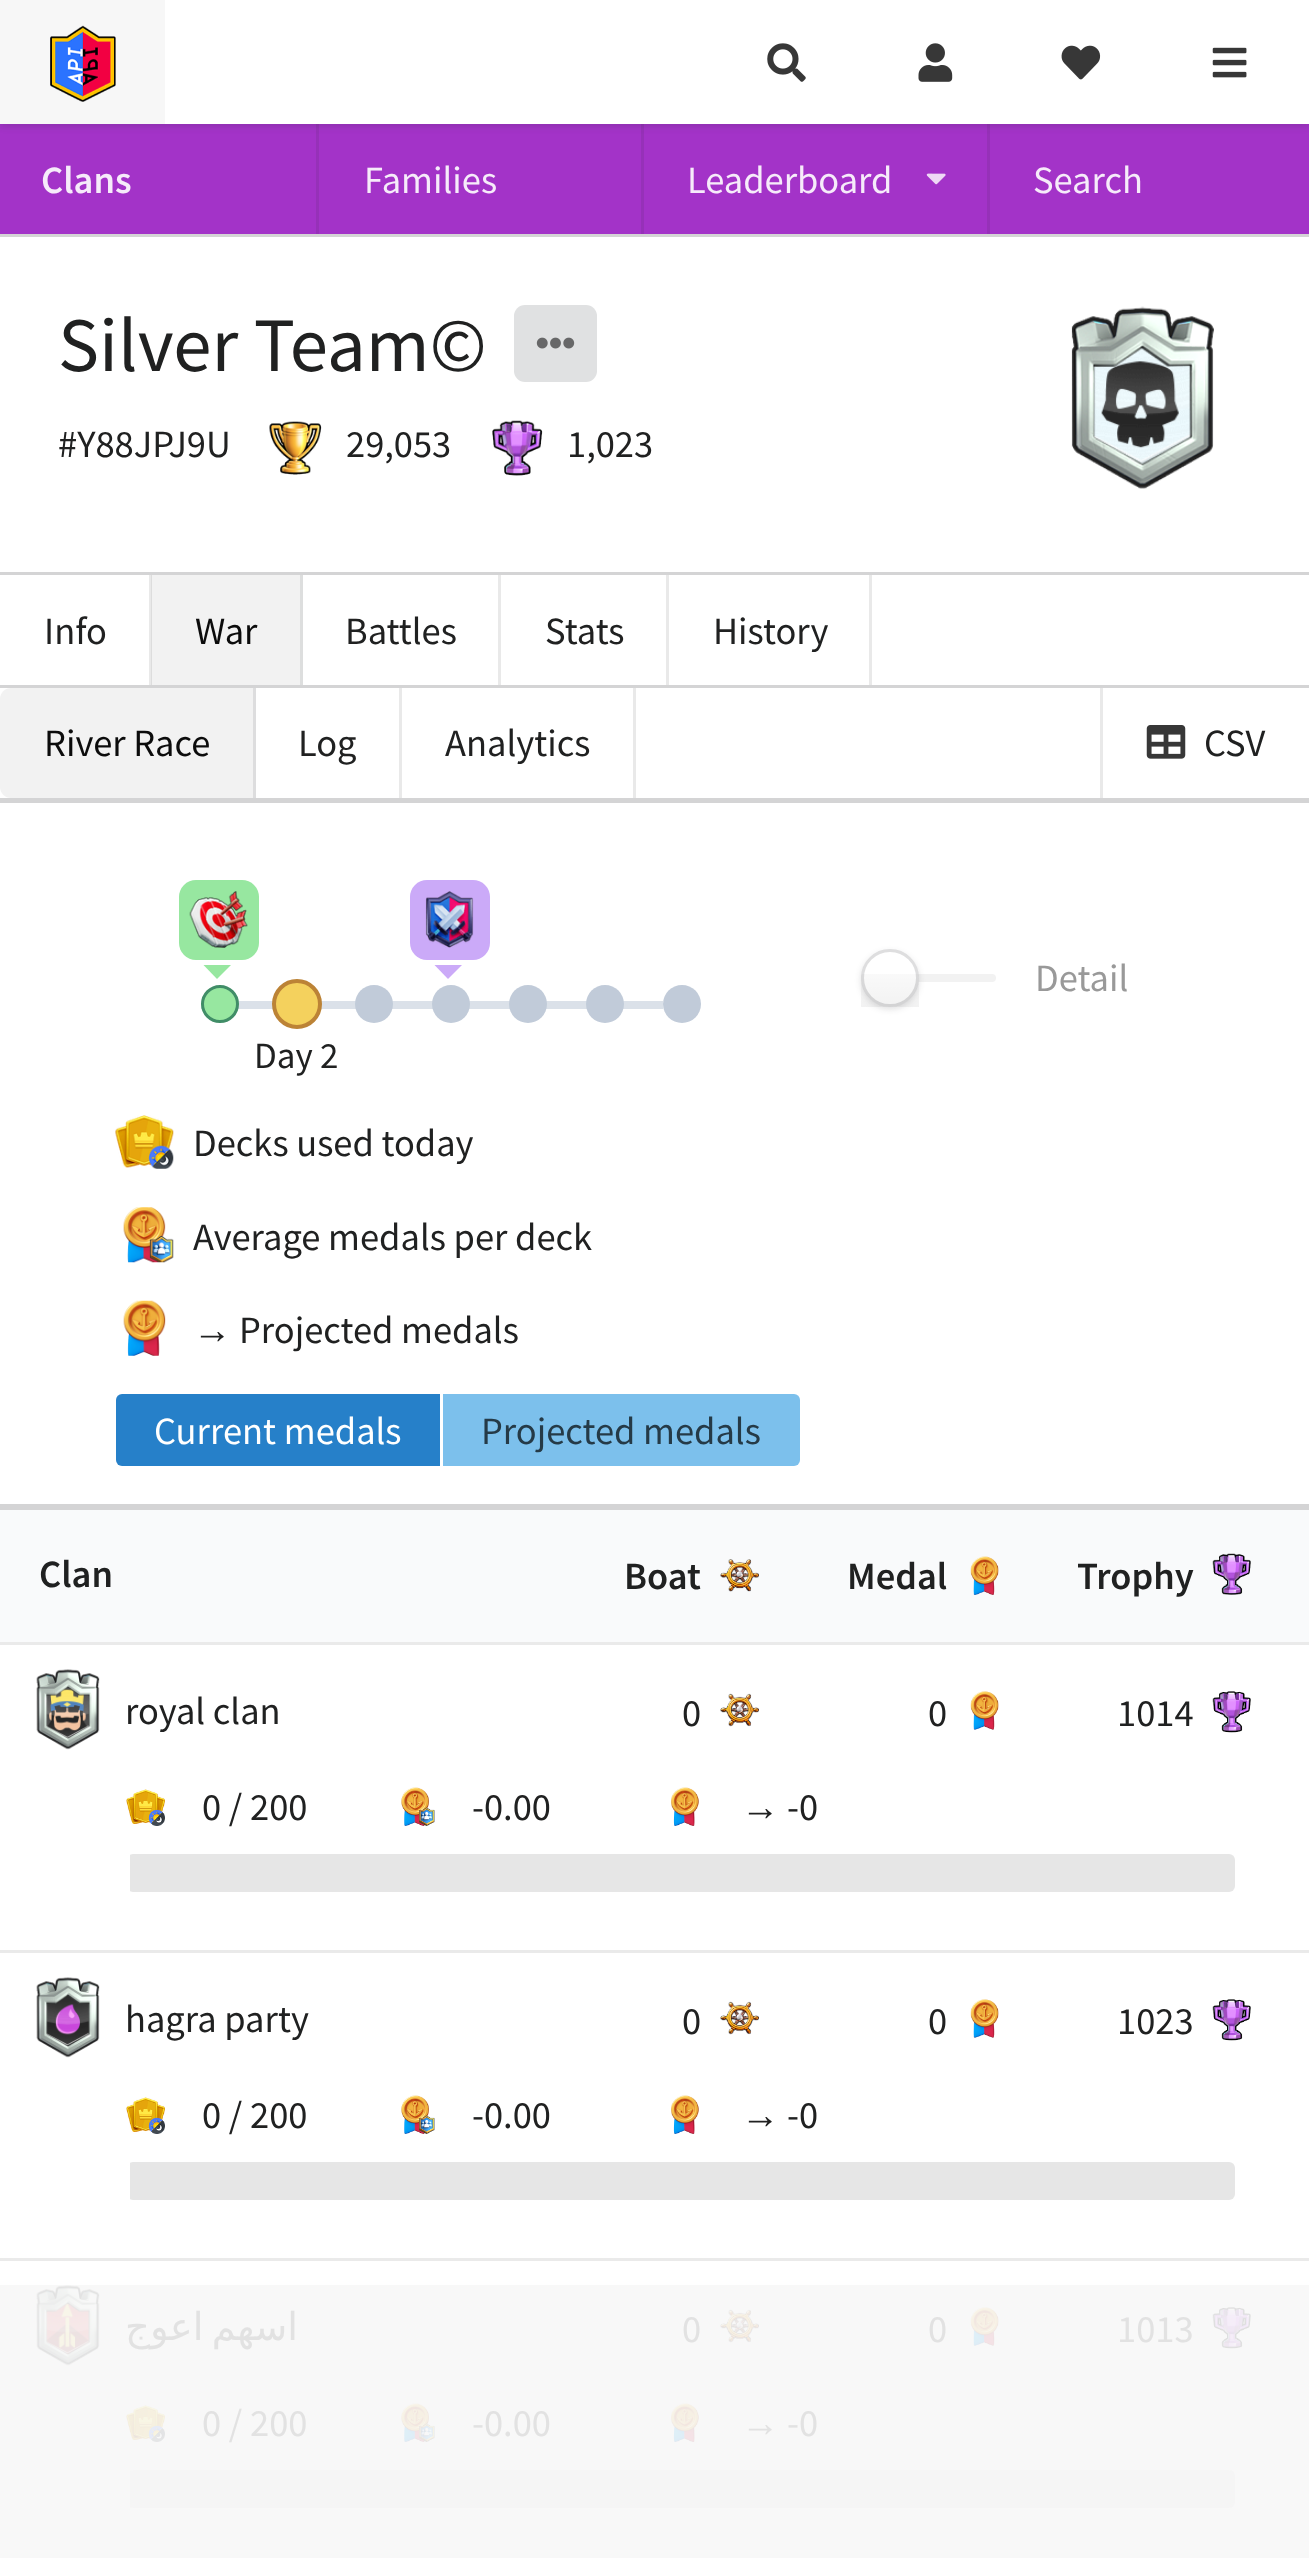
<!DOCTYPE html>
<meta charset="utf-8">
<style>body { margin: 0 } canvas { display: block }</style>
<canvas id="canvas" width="1309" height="2558"></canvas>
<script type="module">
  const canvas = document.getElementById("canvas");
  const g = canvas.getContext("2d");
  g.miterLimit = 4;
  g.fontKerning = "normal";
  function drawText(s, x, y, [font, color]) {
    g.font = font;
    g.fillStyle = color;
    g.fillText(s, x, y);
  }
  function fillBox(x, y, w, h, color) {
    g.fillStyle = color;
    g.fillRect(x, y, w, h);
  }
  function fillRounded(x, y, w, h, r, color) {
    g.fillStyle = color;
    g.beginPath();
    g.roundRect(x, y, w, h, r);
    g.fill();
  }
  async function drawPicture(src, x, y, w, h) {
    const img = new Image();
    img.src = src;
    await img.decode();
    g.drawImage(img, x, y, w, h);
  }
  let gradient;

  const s1 = ["600 38.5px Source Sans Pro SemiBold", "#F6EBFA"];
  const s2 = ["38.5px Source Sans Pro", "#F6EBFA"];
  const s3 = ["77px Source Sans Pro", "#202121"];
  const s4 = ["38.5px Source Sans Pro", "#202121"];
  const s5 = ["38.5px Source Sans Pro", "#0C0C0C"];
  const s6 = ["38.5px Source Sans Pro", "#999999"];
  const s7 = ["37px Source Sans Pro", "#202121"];
  const s8 = ["38.5px Liberation Sans", "#202121"];
  const s9 = ["38.5px Source Sans Pro", "#FFFFFF"];
  const s10 = ["38.5px Source Sans Pro", "#253A47"];
  const s11 = ["600 38.5px Source Sans Pro SemiBold", "#202121"];
  const s12 = ["38.5px DejaVu Sans", "#E2E2E2"];
  const s13 = ["38.5px Source Sans Pro", "#E2E2E2"];
  const s14 = ["38.5px Liberation Sans", "#E2E2E2"];

  fillBox(0, 0, 1309, 2558, "#FFFFFF");
  fillBox(0, 124, 1309, 110, "#A333C8");
  fillBox(316, 124, 3, 110, "#9631B8");
  fillBox(641, 124, 3, 110, "#9631B8");
  fillBox(987, 124, 3, 110, "#9631B8");
  g.fillStyle = "rgba(34, 36, 38, 0.15)";
  g.filter = "blur(3px)";
  g.beginPath();
  g.rect(0, 3, 1309, 124);
  g.fill();
  g.filter = "none";
  fillBox(165, 0, 1144, 124, "#FFFFFF");
  fillBox(0, 0, 165, 124, "#F7F7F7");
  await drawPicture("pic1.png", 50, 25, 66, 77);
  await drawPicture("pic2.png", 767, 43, 39, 39);
  await drawPicture("pic3.png", 918, 43, 35, 39);
  await drawPicture("pic4.png", 1061, 45, 40, 35);
  await drawPicture("pic5.png", 1212, 47, 35, 31);
  drawText("Clans", 41, 193, s1);
  drawText("Families", 364, 193, s2);
  drawText("Leaderboard", 687, 193, s2);
  await drawPicture("pic6.png", 926, 173, 20, 12);
  drawText("Search", 1033, 193, s2);
  g.strokeStyle = "#D4D4D5";
  g.lineWidth = 3;
  g.strokeRect(-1.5, 235.5, 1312, 338);
  drawText("Silver Team©", 58, 371, s3);
  fillRounded(514, 305, 83, 77, 11, "#E0E1E2");
  await drawPicture("pic7.png", 536, 337, 39, 12);
  await drawPicture("pic8.png", 1071, 306, 143, 183);
  drawText("#Y88JPJ9U", 58, 457, s4);
  await drawPicture("pic9.png", 269, 421, 53, 54);
  drawText("29,053", 346, 457, s4);
  await drawPicture("pic10.png", 492, 420, 51, 56);
  drawText("1,023", 567, 457, s4);
  fillBox(152, 575, 148, 110, "#F2F2F2");
  fillBox(0, 685, 1309, 3, "#D4D4D5");
  drawText("Info", 44, 644, s4);
  fillBox(149, 575, 2, 110, "#E9E9E9");
  fillBox(151, 575, 1, 110, "#DDDDDD");
  drawText("War", 195, 644, s5);
  fillBox(300, 575, 3, 110, "#DDDEDE");
  drawText("Battles", 345, 644, s4);
  fillBox(498, 575, 3, 110, "#E9E9E9");
  drawText("Stats", 545, 644, s4);
  fillBox(666, 575, 3, 110, "#E9E9E9");
  drawText("History", 713, 644, s4);
  fillBox(869, 575, 3, 110, "#E9E9E9");
  fillBox(0, 798, 1309, 2, "#D4D4D5");
  g.fillStyle = "#F2F2F2";
  g.beginPath();
  g.roundRect(0, 688, 256, 110, [11, 0, 0, 11]);
  g.fill();
  drawText("River Race", 44, 756, s5);
  fillBox(253, 688, 3, 110, "#DDDDDE");
  drawText("Log", 298, 756, s4);
  fillBox(399, 688, 3, 110, "#E9E9E9");
  drawText("Analytics", 445, 756, s4);
  fillBox(633, 688, 3, 110, "#E9E9E9");
  fillBox(1100, 688, 3, 110, "#E9E9E9");
  await drawPicture("pic11.png", 1146, 725, 40, 34);
  drawText("CSV", 1204, 756, s4);
  g.strokeRect(-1.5, 801.5, 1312, 704);
  fillRounded(861, 974, 135, 8, 4, "#F2F2F2");
  g.fillStyle = "rgba(34, 36, 38, 0.15)";
  g.filter = "blur(3px)";
  g.beginPath();
  g.roundRect(861, 952, 58, 57, 28.5);
  g.fill();
  g.filter = "none";
  g.fillStyle = "#FFFFFF";
  g.beginPath();
  g.arc(890, 978, 29, 0, Math.PI * 2);
  g.fill();
  gradient = g.createLinearGradient(890, 949, 890, 1007);
  gradient.addColorStop(0, "rgba(0, 0, 0, 0)");
  gradient.addColorStop(1, "rgba(0, 0, 0, 0.05)");
  g.fillStyle = gradient;
  g.fillRect(861, 974, 58, 33);
  g.beginPath();
  g.arc(890, 978, 27.5, 0, Math.PI * 2);
  g.strokeStyle = "rgba(34, 36, 38, 0.15)";
  g.stroke();
  drawText("Detail", 1035, 991, s6);
  fillRounded(179, 880, 80, 80, 17, "#97E7A0");
  await drawPicture("pic12.png", 189, 891, 59, 57);
  g.beginPath();
  g.moveTo(203.5, 965);
  g.lineTo(231, 965);
  g.lineTo(217, 979);
  g.closePath();
  g.fill();
  fillBox(201, 1001, 77, 8, "#DBE1E9");
  g.fillStyle = "#97E7A0";
  g.beginPath();
  g.arc(220, 1004, 17.5, 0, Math.PI * 2);
  g.fill();
  g.strokeStyle = "#408D67";
  g.stroke();
  fillRounded(410, 880, 80, 80, 17, "#CBAAF8");
  await drawPicture("pic13.png", 425, 891, 49, 57);
  g.beginPath();
  g.moveTo(434.5, 965);
  g.lineTo(462, 965);
  g.lineTo(448, 979);
  g.closePath();
  g.fill();
  fillBox(321, 1001, 342, 8, "#DBE1E9");
  g.fillStyle = "#C1CBD9";
  g.beginPath();
  g.arc(451, 1004, 19, 0, Math.PI * 2);
  g.fill();
  g.beginPath();
  g.arc(374, 1004, 19, 0, Math.PI * 2);
  g.fill();
  g.beginPath();
  g.arc(528, 1004, 19, 0, Math.PI * 2);
  g.fill();
  g.beginPath();
  g.arc(605, 1004, 19, 0, Math.PI * 2);
  g.fill();
  g.beginPath();
  g.arc(682, 1004, 19, 0, Math.PI * 2);
  g.fill();
  g.fillStyle = "#F4D15D";
  g.beginPath();
  g.arc(297, 1004, 23, 0, Math.PI * 2);
  g.fill();
  g.strokeStyle = "#BC8336";
  g.lineWidth = 4;
  g.stroke();
  drawText("Day 2", 254, 1068, s7);
  await drawPicture("pic14.png", 115, 1115, 59, 54);
  drawText("Decks used today", 193, 1156, s4);
  await drawPicture("pic15.png", 123, 1207, 51, 56);
  drawText("Average medals per deck", 193, 1250, s4);
  await drawPicture("pic16.png", 123, 1300, 43, 56);
  drawText("→", 193, 1343, s8);
  drawText("Projected medals", 239, 1343, s4);
  g.fillStyle = "#2680C9";
  g.beginPath();
  g.roundRect(116, 1394, 324, 72, [6, 0, 0, 6]);
  g.fill();
  drawText("Current medals", 154, 1444, s9);
  g.fillStyle = "#7CC0EC";
  g.beginPath();
  g.roundRect(443, 1394, 357, 72, [0, 6, 6, 0]);
  g.fill();
  drawText("Projected medals", 481, 1444, s10);
  fillBox(0, 2285, 1309, 273, "#F8F8F8");
  fillBox(0, 1507, 1309, 3, "#D4D4D5");
  fillBox(0, 1510, 1309, 132, "#F9FAFB");
  drawText("Clan", 39, 1587, s11);
  await drawPicture("pic17.png", 720, 1559, 39, 33);
  drawText("Boat", 624, 1589, s11);
  await drawPicture("pic18.png", 970, 1556, 29, 39);
  drawText("Medal", 847, 1589, s11);
  await drawPicture("pic19.png", 1212, 1553, 39, 42);
  drawText("Trophy", 1077, 1589, s11);
  fillBox(0, 1642, 1309, 3, "#EAEAEA");
  await drawPicture("pic20.png", 36, 1669, 64, 81);
  drawText("royal clan", 125, 1724, s4);
  await drawPicture("pic21.png", 720, 1693, 39, 34);
  drawText("0", 682, 1726, s4);
  await drawPicture("pic22.png", 970, 1691, 29, 39);
  drawText("0", 928, 1726, s4);
  await drawPicture("pic23.png", 1212, 1691, 39, 42);
  drawText("1014", 1117, 1726, s4);
  await drawPicture("pic24.png", 126, 1789, 39, 37);
  drawText("0 / 200", 202, 1820, s4);
  await drawPicture("pic25.png", 401, 1787, 34, 39);
  drawText("-0.00", 472, 1820, s4);
  await drawPicture("pic26.png", 671, 1787, 28, 39);
  drawText("→", 741, 1820, s8);
  drawText("-0", 787, 1820, s4);
  fillRounded(127, 1854, 1108, 38, 6, "#E6E6E6");
  fillBox(127, 1851, 3, 44, "#FFFFFF");
  fillBox(0, 1950, 1309, 3, "#EAEAEA");
  await drawPicture("pic27.png", 36, 1977, 64, 81);
  drawText("hagra party", 125, 2032, s4);
  await drawPicture("pic21.png", 720, 2001, 39, 34);
  drawText("0", 682, 2034, s4);
  await drawPicture("pic22.png", 970, 1999, 29, 39);
  drawText("0", 928, 2034, s4);
  await drawPicture("pic23.png", 1212, 1999, 39, 42);
  drawText("1023", 1117, 2034, s4);
  await drawPicture("pic24.png", 126, 2097, 39, 37);
  drawText("0 / 200", 202, 2128, s4);
  await drawPicture("pic25.png", 401, 2095, 34, 39);
  drawText("-0.00", 472, 2128, s4);
  await drawPicture("pic26.png", 671, 2095, 28, 39);
  drawText("→", 741, 2128, s8);
  drawText("-0", 787, 2128, s4);
  fillRounded(127, 2162, 1108, 38, 6, "#E6E6E6");
  fillBox(127, 2159, 3, 44, "#FFFFFF");
  fillBox(0, 2258, 1309, 3, "#EAEAEA");
  await drawPicture("pic28.png", 36, 2285, 64, 81);
  g.wordSpacing = "-4px";
  g.direction = "rtl";
  drawText("اسهم اعوج", 298, 2340, s12);
  await drawPicture("pic29.png", 720, 2309, 39, 34);
  g.wordSpacing = "0px";
  g.direction = "ltr";
  drawText("0", 682, 2342, s13);
  await drawPicture("pic30.png", 970, 2307, 29, 39);
  drawText("0", 928, 2342, s13);
  await drawPicture("pic31.png", 1212, 2307, 39, 42);
  drawText("1013", 1117, 2342, s13);
  await drawPicture("pic32.png", 126, 2405, 39, 37);
  drawText("0 / 200", 202, 2436, s13);
  await drawPicture("pic33.png", 401, 2403, 34, 39);
  drawText("-0.00", 472, 2436, s13);
  await drawPicture("pic34.png", 671, 2403, 28, 39);
  drawText("→", 741, 2436, s14);
  drawText("-0", 787, 2436, s13);
  fillRounded(127, 2470, 1108, 38, 6, "#F5F5F5");
  fillBox(127, 2467, 3, 44, "#F8F8F8");
</script>
